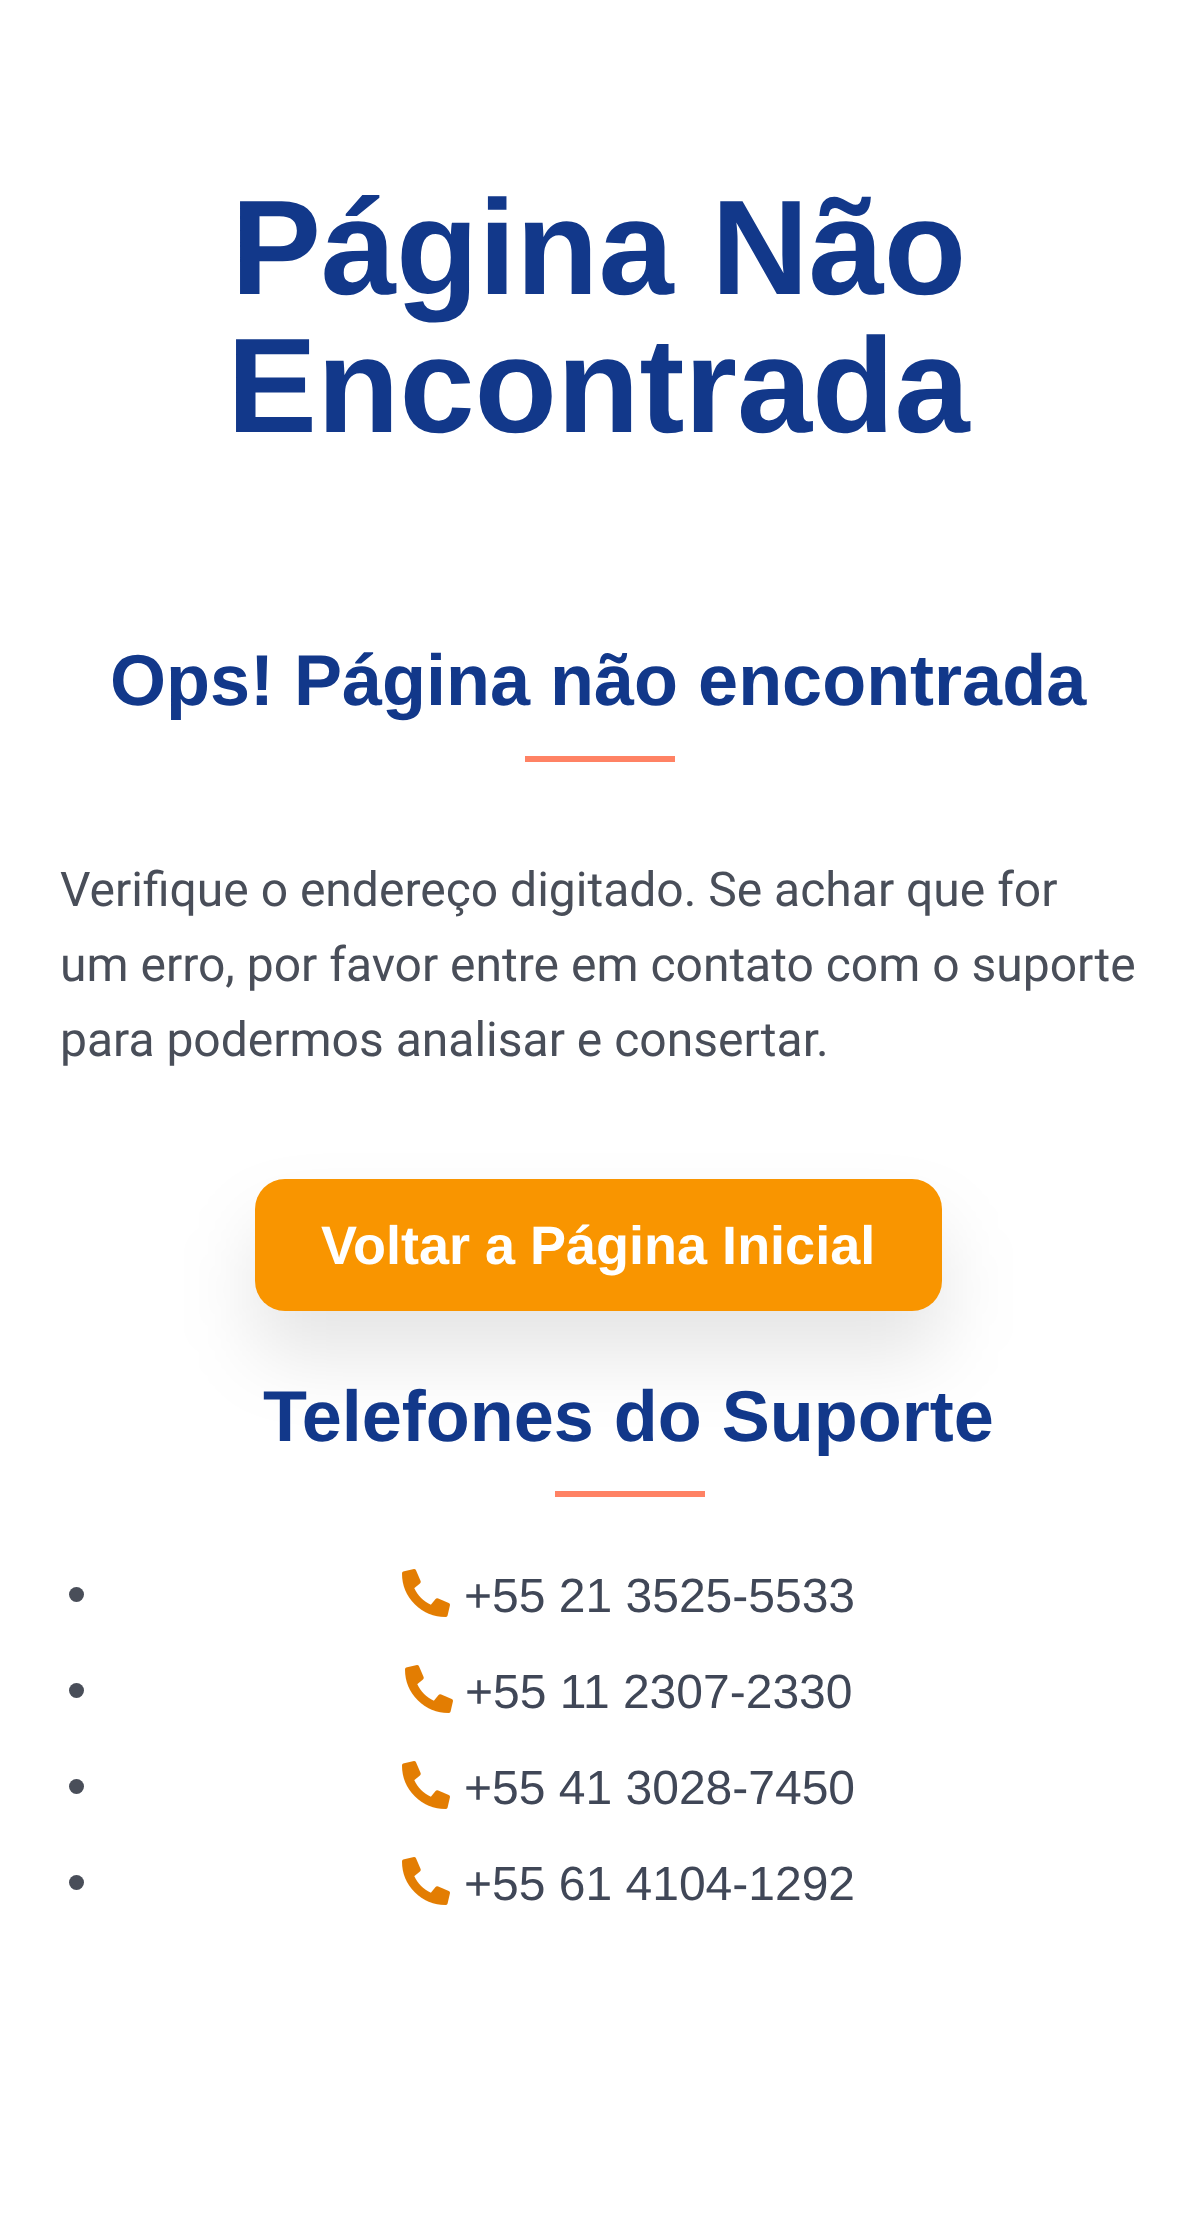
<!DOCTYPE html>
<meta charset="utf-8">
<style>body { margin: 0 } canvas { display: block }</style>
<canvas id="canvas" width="1197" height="2222"></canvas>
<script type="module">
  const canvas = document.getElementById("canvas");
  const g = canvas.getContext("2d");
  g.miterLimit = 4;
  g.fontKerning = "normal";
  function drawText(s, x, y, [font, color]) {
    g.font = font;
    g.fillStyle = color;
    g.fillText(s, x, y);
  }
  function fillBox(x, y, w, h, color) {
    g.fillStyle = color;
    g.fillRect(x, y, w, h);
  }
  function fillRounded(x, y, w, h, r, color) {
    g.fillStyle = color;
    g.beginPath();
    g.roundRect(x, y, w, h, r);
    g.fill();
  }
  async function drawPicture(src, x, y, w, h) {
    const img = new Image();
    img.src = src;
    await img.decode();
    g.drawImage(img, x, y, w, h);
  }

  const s1 = ["bold 135px Liberation Sans", "#12388A"];
  const s2 = ["bold 72px Liberation Sans", "#12388A"];
  const s3 = ["48px Roboto", "#494E59"];
  const s4 = ["bold 54px Liberation Sans", "#FFFFFF"];
  const s5 = ["48px Liberation Sans", "#404757"];

  fillBox(0, 0, 1197, 2222, "#FFFFFF");
  drawText("Página Não", 231, 294, s1);
  drawText("Encontrada", 227, 432, s1);
  drawText("Ops! Página não encontrada", 110, 705, s2);
  fillBox(525, 756, 150, 6, "#FF8264");
  drawText("Verifique o endereço digitado. Se achar que for", 60, 906, s3);
  drawText("um erro, por favor entre em contato com o suporte", 60, 981, s3);
  drawText("para podermos analisar e consertar.", 60, 1056, s3);
  g.fillStyle = "rgba(0, 0, 0, 0.1)";
  g.filter = "blur(37.5px)";
  g.beginPath();
  g.roundRect(255, 1224, 687, 132, 30);
  g.fill();
  g.filter = "none";
  fillRounded(255, 1179, 687, 132, 30, "#F99500");
  drawText("Voltar a Página Inicial", 321, 1264, s4);
  drawText("Telefones do Suporte", 263, 1441, s2);
  fillBox(555, 1491, 150, 6, "#FF8264");
  g.fillStyle = "#494E59";
  g.beginPath();
  g.arc(76.5, 1594.5, 7.5, 0, Math.PI * 2);
  g.fill();
  await drawPicture("pic1.png", 402, 1569, 48, 48);
  drawText("+55 21 3525-5533", 464, 1612, s5);
  g.fillStyle = "#494E59";
  g.beginPath();
  g.arc(76.5, 1690.5, 7.5, 0, Math.PI * 2);
  g.fill();
  await drawPicture("pic1.png", 405, 1665, 48, 48);
  drawText("+55 11 2307-2330", 465, 1708, s5);
  g.fillStyle = "#494E59";
  g.beginPath();
  g.arc(76.5, 1786.5, 7.5, 0, Math.PI * 2);
  g.fill();
  await drawPicture("pic1.png", 402, 1761, 48, 48);
  drawText("+55 41 3028-7450", 464, 1804, s5);
  g.fillStyle = "#494E59";
  g.beginPath();
  g.arc(76.5, 1882.5, 7.5, 0, Math.PI * 2);
  g.fill();
  await drawPicture("pic1.png", 402, 1857, 48, 48);
  drawText("+55 61 4104-1292", 464, 1900, s5);
</script>
